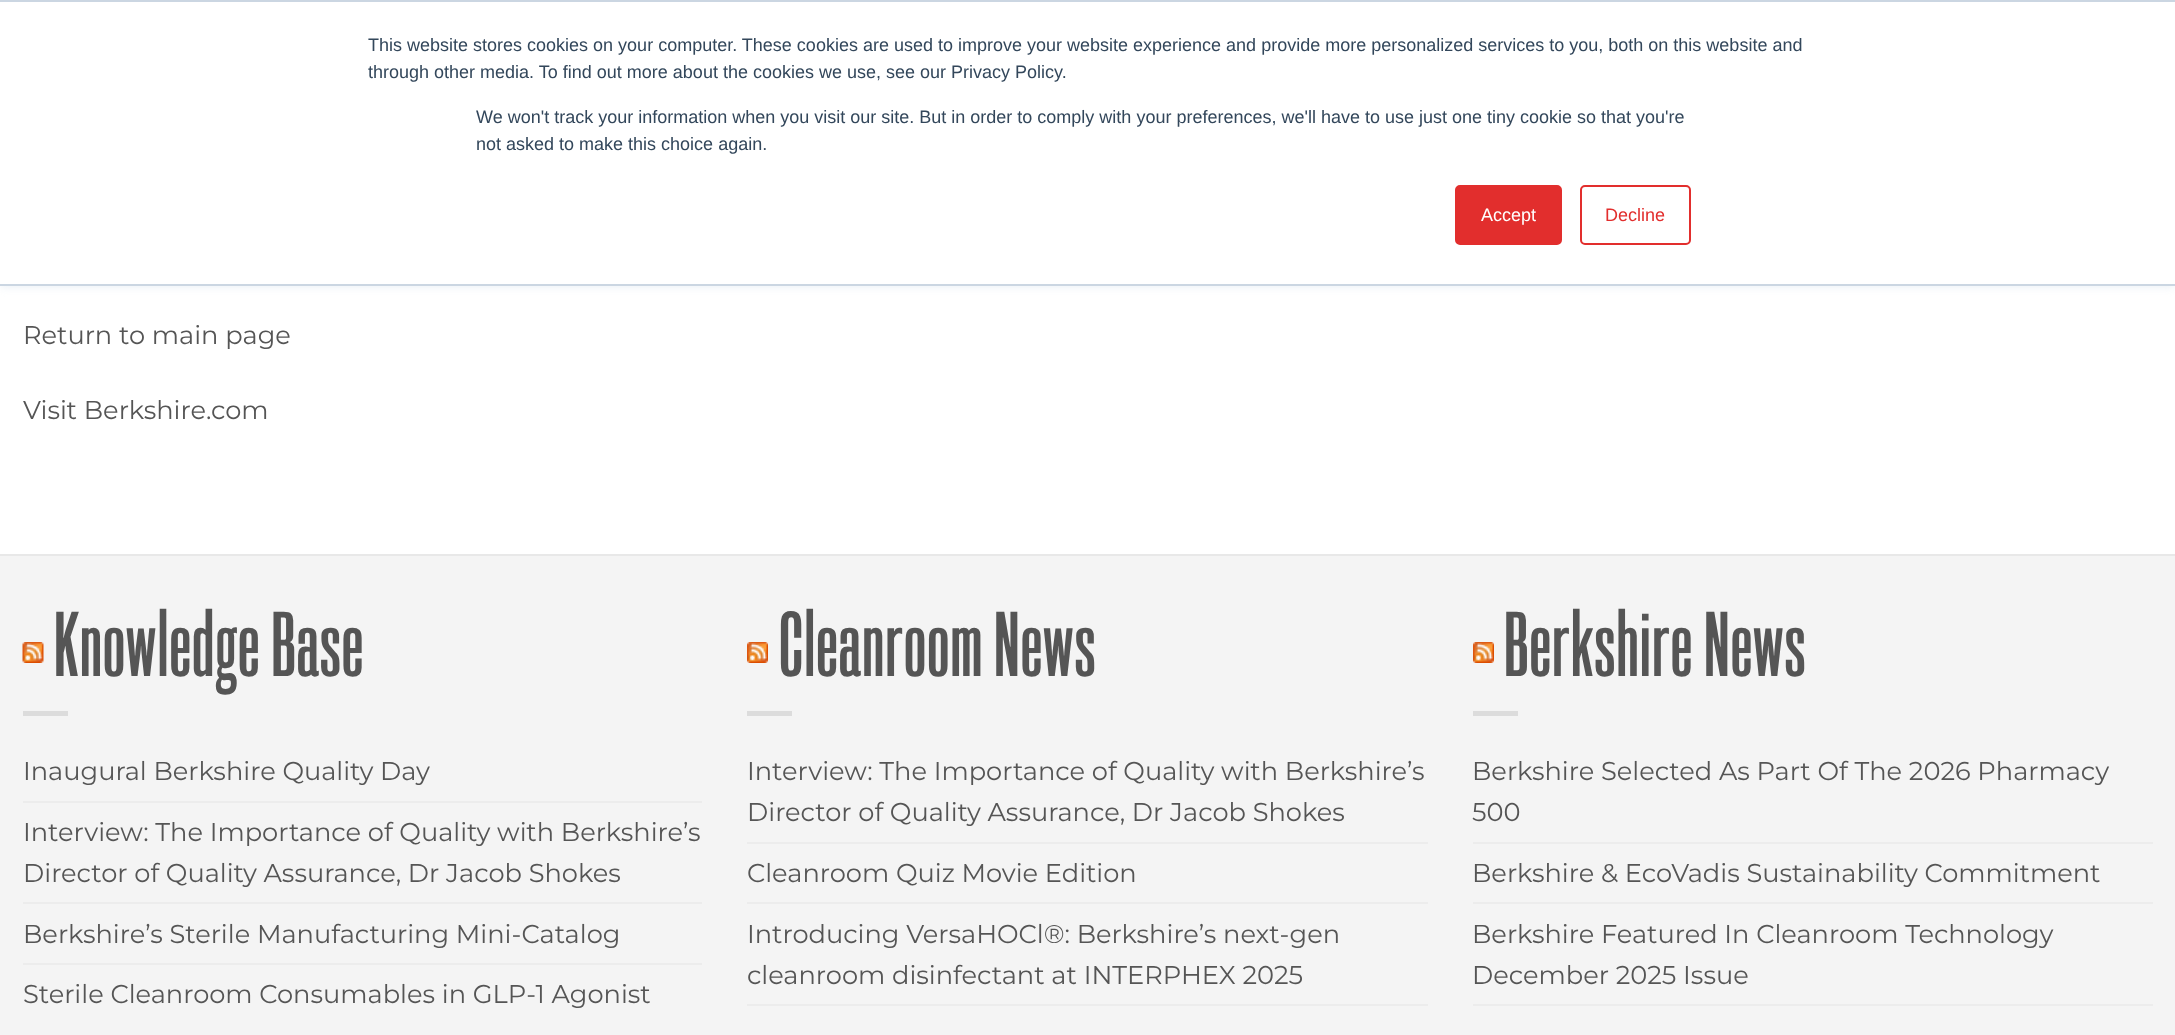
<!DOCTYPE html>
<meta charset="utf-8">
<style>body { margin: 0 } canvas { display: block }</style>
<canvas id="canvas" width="2175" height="1035"></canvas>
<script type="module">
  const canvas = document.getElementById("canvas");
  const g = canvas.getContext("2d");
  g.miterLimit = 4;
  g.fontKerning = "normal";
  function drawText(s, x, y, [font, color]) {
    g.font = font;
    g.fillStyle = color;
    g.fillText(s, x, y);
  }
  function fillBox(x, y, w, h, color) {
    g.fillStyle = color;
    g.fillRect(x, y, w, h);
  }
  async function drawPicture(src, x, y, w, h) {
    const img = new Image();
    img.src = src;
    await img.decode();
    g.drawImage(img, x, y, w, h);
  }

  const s1 = ["18px Liberation Sans", "#33475B"];
  const s2 = ["18px Liberation Sans", "#FFFFFF"];
  const s3 = ["18px Liberation Sans", "#E22E2D"];
  const s4 = ["100 25.7px Montserrat", "#555555"];
  const s5 = ["600 90px 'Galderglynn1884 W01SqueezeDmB'", "#555555"];

  fillBox(0, 0, 2175, 1035, "#FFFFFF");
  g.fillStyle = "#EAF0F6";
  g.filter = "blur(4px)";
  g.beginPath();
  g.rect(0, 2, 2175, 285);
  g.fill();
  g.filter = "none";
  fillBox(0, 2, 2175, 282, "#FFFFFF");
  fillBox(0, 0, 2175, 2, "#CBD6E2");
  fillBox(0, 284, 2175, 2, "#CBD6E2");
  drawText("This website stores cookies on your computer. These cookies are used to improve your website experience and provide more personalized services to you, both on this website and", 368, 51, s1);
  drawText("through other media. To find out more about the cookies we use, see our Privacy Policy.", 368, 78, s1);
  drawText("We won't track your information when you visit our site. But in order to comply with your preferences, we'll have to use just one tiny cookie so that you're", 476, 123, s1);
  drawText("not asked to make this choice again.", 476, 150, s1);
  g.fillStyle = "#E22E2D";
  g.beginPath();
  g.roundRect(1456, 186, 105, 58, 4);
  g.fill();
  g.strokeStyle = "#E22E2D";
  g.lineWidth = 2;
  g.stroke();
  drawText("Accept", 1481, 221, s2);
  g.beginPath();
  g.roundRect(1581, 186, 109, 58, 4);
  g.stroke();
  drawText("Decline", 1605, 221, s3);
  drawText("Return to main page", 23, 344, s4);
  drawText("Visit Berkshire.com", 23, 419, s4);
  fillBox(0, 556, 2175, 479, "#F4F4F4");
  fillBox(0, 554, 2175, 2, "#E8E8E8");
  await drawPicture("pic1.png", 22, 642, 22, 21);
  g.letterSpacing = "1.5px";
  drawText("Knowledge Base", 54, 676, s5);
  fillBox(23, 711, 45, 5, "#DCDCDC");
  g.letterSpacing = "0px";
  drawText("Inaugural Berkshire Quality Day", 23, 780, s4);
  fillBox(23, 801, 679, 2, "#ECECEC");
  drawText("Interview: The Importance of Quality with Berkshire’s", 23, 841, s4);
  drawText("Director of Quality Assurance, Dr Jacob Shokes", 23, 882, s4);
  fillBox(23, 902, 679, 2, "#ECECEC");
  drawText("Berkshire’s Sterile Manufacturing Mini-Catalog", 23, 943, s4);
  fillBox(23, 963, 679, 2, "#ECECEC");
  drawText("Sterile Cleanroom Consumables in GLP-1 Agonist", 23, 1003, s4);
  await drawPicture("pic2.png", 747, 642, 21, 21);
  g.letterSpacing = "1.5px";
  drawText("Cleanroom News", 779, 676, s5);
  fillBox(747, 711, 45, 5, "#DCDCDC");
  g.letterSpacing = "0px";
  drawText("Interview: The Importance of Quality with Berkshire’s", 747, 780, s4);
  drawText("Director of Quality Assurance, Dr Jacob Shokes", 747, 821, s4);
  fillBox(747, 842, 681, 2, "#ECECEC");
  drawText("Cleanroom Quiz Movie Edition", 747, 882, s4);
  fillBox(747, 902, 681, 2, "#ECECEC");
  drawText("Introducing VersaHOCl®: Berkshire’s next-gen", 747, 943, s4);
  drawText("cleanroom disinfectant at INTERPHEX 2025", 747, 984, s4);
  fillBox(747, 1004, 681, 2, "#ECECEC");
  await drawPicture("pic2.png", 1473, 642, 21, 21);
  g.letterSpacing = "1.5px";
  drawText("Berkshire News", 1504, 676, s5);
  fillBox(1473, 711, 45, 5, "#DCDCDC");
  g.letterSpacing = "0px";
  drawText("Berkshire Selected As Part Of The 2026 Pharmacy", 1472, 780, s4);
  drawText("500", 1472, 821, s4);
  fillBox(1473, 842, 680, 2, "#ECECEC");
  drawText("Berkshire & EcoVadis Sustainability Commitment", 1472, 882, s4);
  fillBox(1473, 902, 680, 2, "#ECECEC");
  drawText("Berkshire Featured In Cleanroom Technology", 1472, 943, s4);
  drawText("December 2025 Issue", 1472, 984, s4);
  fillBox(1473, 1004, 680, 2, "#ECECEC");
</script>
